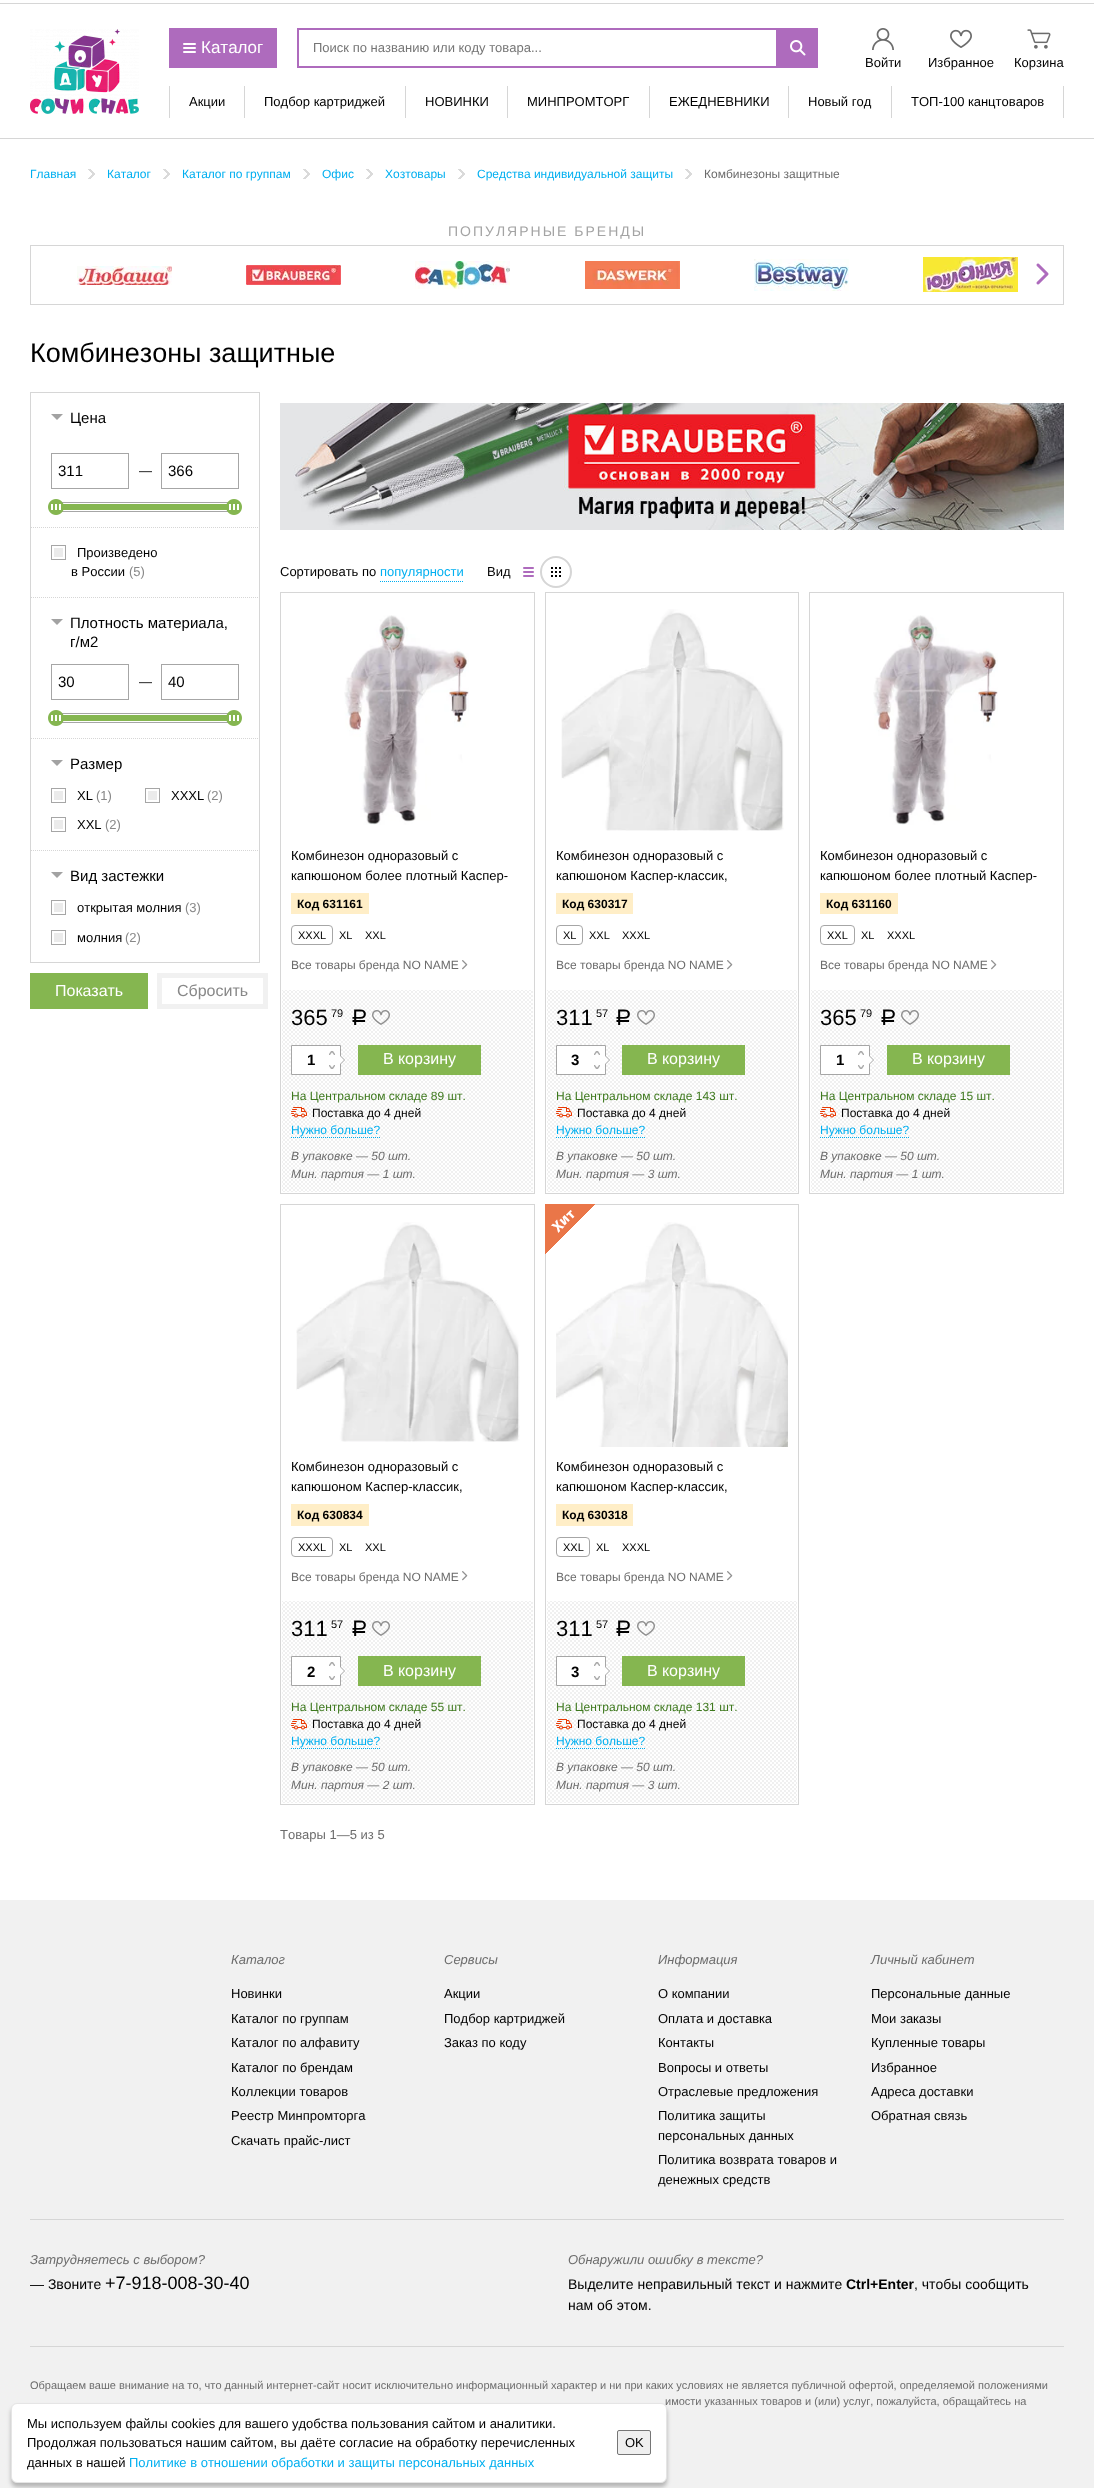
<!DOCTYPE html>
<meta charset="utf-8">
<style>body { margin: 0 } canvas { display: block }</style>
<canvas id="canvas" width="1094" height="2488"></canvas>
<script type="module">
  const canvas = document.getElementById("canvas");
  const g = canvas.getContext("2d");
  g.miterLimit = 4;
  g.fontKerning = "none";
  function drawText(s, x, y, [font, color]) {
    g.font = font;
    g.fillStyle = color;
    g.fillText(s, x, y);
  }
  function fillBox(x, y, w, h, color) {
    g.fillStyle = color;
    g.fillRect(x, y, w, h);
  }
  function fillRounded(x, y, w, h, r, color) {
    g.fillStyle = color;
    g.beginPath();
    g.roundRect(x, y, w, h, r);
    g.fill();
  }
  async function drawPicture(src, x, y, w, h) {
    const img = new Image();
    img.src = src;
    await img.decode();
    g.drawImage(img, x, y, w, h);
  }

  const s1 = ["17px Liberation Sans", "#FFFFFF"];
  const s2 = ["13px Liberation Sans", "#757575"];
  const s3 = ["13px Liberation Sans", "#000000"];
  const s4 = ["12px Liberation Sans", "#00AFF0"];
  const s5 = ["12px Liberation Sans", "#6C6C6C"];
  const s6 = ["14px Liberation Sans", "#A4A4A4"];
  const s7 = ["27px Liberation Sans", "#000000"];
  const s8 = ["15px Liberation Sans", "#000000"];
  const s9 = ["13px Liberation Sans", "#888888"];
  const s10 = ["16px Liberation Sans", "#FFFFFF"];
  const s11 = ["16px Liberation Sans", "#888888"];
  const s12 = ["13px Liberation Sans", "#00AFF0"];
  const s13 = ["bold 12px Liberation Sans", "#000000"];
  const s14 = ["11px Liberation Sans", "#000000"];
  const s15 = ["22px Liberation Sans", "#000000"];
  const s16 = ["22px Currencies", "#000000"];
  const s17 = ["bold 15px Liberation Sans", "#000000"];
  const s18 = ["12px Liberation Sans", "#3E791E"];
  const s19 = ["12px Liberation Sans", "#000000"];
  const s20 = ["italic 12px Liberation Sans", "#6C6C6C"];
  const s21 = ["13px Liberation Sans", "#6C6C6C"];
  const s22 = ["italic 13px Liberation Sans", "#6C6C6C"];
  const s23 = ["14px Liberation Sans", "#000000"];
  const s24 = ["18px Liberation Sans", "#000000"];
  const s25 = ["bold 14px Liberation Sans", "#000000"];
  const s26 = ["11px Liberation Sans", "#6C6C6C"];

  fillBox(0, 0, 1094, 2488, "#FFFFFF");
  fillBox(0, 3, 1094, 1, "#D6D6D6");
  fillBox(0, 138, 1094, 1, "#D6D6D6");
  await drawPicture("pic1.png", 30, 29, 109, 85);
  fillBox(169, 28, 108, 40, "#AE6BBD");
  fillRounded(183, 47, 13, 2, 1, "#FFFFFF");
  fillRounded(183, 43, 13, 2, 1, "#FFFFFF");
  fillRounded(183, 51, 13, 2, 1, "#FFFFFF");
  drawText("Каталог", 201, 53, s1);
  g.strokeStyle = "#AE6BBD";
  g.lineWidth = 2;
  g.strokeRect(298, 29, 519, 38);
  drawText("Поиск по названию или коду товара...", 313, 52, s2);
  fillBox(776, 30, 40, 36, "#AE6BBD");
  await drawPicture("pic2.png", 790, 40, 16, 16);
  await drawPicture("pic3.png", 872, 28, 22, 22);
  drawText("Войти", 865, 67, s3);
  await drawPicture("pic4.png", 950, 29, 22, 19);
  drawText("Избранное", 928, 67, s3);
  await drawPicture("pic5.png", 1027, 29, 24, 20);
  drawText("Корзина", 1014, 67, s3);
  fillBox(244, 86, 1, 32, "#D6D6D6");
  fillBox(169, 86, 1, 32, "#D6D6D6");
  drawText("Акции", 189, 106, s3);
  fillBox(405, 86, 1, 32, "#D6D6D6");
  drawText("Подбор картриджей", 264, 106, s3);
  fillBox(507, 86, 1, 32, "#D6D6D6");
  drawText("НОВИНКИ", 425, 106, s3);
  fillBox(649, 86, 1, 32, "#D6D6D6");
  drawText("МИНПРОМТОРГ", 527, 106, s3);
  fillBox(788, 86, 1, 32, "#D6D6D6");
  drawText("ЕЖЕДНЕВНИКИ", 669, 106, s3);
  fillBox(891, 86, 1, 32, "#D6D6D6");
  drawText("Новый год", 808, 106, s3);
  fillBox(1063, 86, 1, 32, "#D6D6D6");
  drawText("ТОП-100 канцтоваров", 911, 106, s3);
  drawText("Главная", 30, 178, s4);
  await drawPicture("pic6.png", 88, 169, 7, 10);
  drawText("Каталог", 107, 178, s4);
  await drawPicture("pic6.png", 163, 169, 7, 10);
  drawText("Каталог по группам", 182, 178, s4);
  await drawPicture("pic6.png", 303, 169, 7, 10);
  drawText("Офис", 322, 178, s4);
  await drawPicture("pic6.png", 366, 169, 7, 10);
  drawText("Хозтовары", 385, 178, s4);
  await drawPicture("pic6.png", 458, 169, 7, 10);
  drawText("Средства индивидуальной защиты", 477, 178, s4);
  await drawPicture("pic6.png", 685, 169, 7, 10);
  drawText("Комбинезоны защитные", 704, 178, s5);
  g.letterSpacing = "2px";
  drawText("ПОПУЛЯРНЫЕ БРЕНДЫ", 448, 236, s6);
  g.strokeStyle = "#D6D6D6";
  g.lineWidth = 1;
  g.strokeRect(30.5, 245.5, 1033, 59);
  await drawPicture("pic7.png", 77, 266, 95, 19);
  await drawPicture("pic8.png", 246, 265, 95, 20);
  await drawPicture("pic9.png", 415, 261, 95, 28);
  await drawPicture("pic10.png", 585, 261, 95, 28);
  await drawPicture("pic11.png", 754, 259, 95, 32);
  await drawPicture("pic12.png", 923, 257, 95, 35);
  await drawPicture("pic13.png", 1036, 263, 13, 22);
  g.letterSpacing = "0px";
  drawText("Комбинезоны защитные", 30, 362, s7);
  g.strokeRect(30.5, 392.5, 229, 570);
  g.fillStyle = "#A2A2A2";
  g.beginPath();
  g.moveTo(51, 414);
  g.lineTo(63, 414);
  g.lineTo(57, 420);
  g.closePath();
  g.fill();
  drawText("Цена", 70, 423, s8);
  g.strokeStyle = "#A6A6A6";
  g.strokeRect(51.5, 453.5, 77, 35);
  drawText("311", 58, 476, s8);
  drawText("—", 139, 475, s3);
  g.strokeRect(161.5, 453.5, 77, 35);
  drawText("366", 168, 476, s8);
  g.strokeRect(51.5, 502.5, 187, 9);
  fillBox(63, 504, 164, 6, "#85B650");
  await drawPicture("pic14.png", 48, 499, 16, 16);
  await drawPicture("pic15.png", 226, 499, 16, 16);
  g.beginPath();
  g.moveTo(31, 527.5);
  g.lineTo(259, 527.5);
  g.strokeStyle = "#D6D6D6";
  g.setLineDash([1, 1]);
  g.stroke();
  fillBox(54, 548, 9, 9, "#EBEBEB");
  g.strokeStyle = "#A6A6A6";
  g.setLineDash([]);
  g.strokeRect(51.5, 545.5, 14, 14);
  drawText("Произведено", 77, 557, s3);
  drawText("в России", 71, 576, s3);
  drawText("(5)", 129, 576, s9);
  g.beginPath();
  g.moveTo(31, 597.5);
  g.lineTo(259, 597.5);
  g.strokeStyle = "#D6D6D6";
  g.setLineDash([1, 1]);
  g.stroke();
  g.fillStyle = "#A2A2A2";
  g.beginPath();
  g.moveTo(51, 619);
  g.lineTo(63, 619);
  g.lineTo(57, 625);
  g.closePath();
  g.fill();
  drawText("Плотность материала,", 70, 628, s8);
  drawText("г/м2", 70, 647, s8);
  g.strokeStyle = "#A6A6A6";
  g.setLineDash([]);
  g.strokeRect(51.5, 664.5, 77, 35);
  drawText("30", 58, 687, s8);
  drawText("—", 139, 686, s3);
  g.strokeRect(161.5, 664.5, 77, 35);
  drawText("40", 168, 687, s8);
  g.strokeRect(51.5, 713.5, 187, 9);
  fillBox(63, 715, 164, 6, "#85B650");
  await drawPicture("pic14.png", 48, 710, 16, 16);
  await drawPicture("pic15.png", 226, 710, 16, 16);
  g.beginPath();
  g.moveTo(31, 738.5);
  g.lineTo(259, 738.5);
  g.strokeStyle = "#D6D6D6";
  g.setLineDash([1, 1]);
  g.stroke();
  g.fillStyle = "#A2A2A2";
  g.beginPath();
  g.moveTo(51, 760);
  g.lineTo(63, 760);
  g.lineTo(57, 766);
  g.closePath();
  g.fill();
  drawText("Размер", 70, 769, s8);
  fillBox(54, 791, 9, 9, "#EBEBEB");
  g.strokeStyle = "#A6A6A6";
  g.setLineDash([]);
  g.strokeRect(51.5, 788.5, 14, 14);
  drawText("XL", 77, 800, s3);
  drawText("(1)", 96, 800, s9);
  fillBox(54, 820, 9, 9, "#EBEBEB");
  g.strokeRect(51.5, 817.5, 14, 14);
  drawText("XXL", 77, 829, s3);
  drawText("(2)", 105, 829, s9);
  fillBox(148, 791, 9, 9, "#EBEBEB");
  g.strokeRect(145.5, 788.5, 14, 14);
  drawText("XXXL", 171, 800, s3);
  drawText("(2)", 207, 800, s9);
  g.beginPath();
  g.moveTo(31, 850.5);
  g.lineTo(259, 850.5);
  g.strokeStyle = "#D6D6D6";
  g.setLineDash([1, 1]);
  g.stroke();
  g.fillStyle = "#A2A2A2";
  g.beginPath();
  g.moveTo(51, 872);
  g.lineTo(63, 872);
  g.lineTo(57, 878);
  g.closePath();
  g.fill();
  drawText("Вид застежки", 70, 881, s8);
  fillBox(54, 903, 9, 9, "#EBEBEB");
  g.strokeStyle = "#A6A6A6";
  g.setLineDash([]);
  g.strokeRect(51.5, 900.5, 14, 14);
  drawText("открытая молния", 77, 912, s3);
  drawText("(3)", 185, 912, s9);
  fillBox(54, 933, 9, 9, "#EBEBEB");
  g.strokeRect(51.5, 930.5, 14, 14);
  drawText("молния", 77, 942, s3);
  drawText("(2)", 125, 942, s9);
  fillBox(30, 973, 118, 36, "#85B650");
  drawText("Показать", 55, 996, s10);
  g.strokeStyle = "#F1F1F1";
  g.lineWidth = 5;
  g.strokeRect(159.5, 975.5, 106, 31);
  drawText("Сбросить", 177, 996, s11);
  await drawPicture("pic16.png", 280, 403, 784, 127);
  drawText("Сортировать по", 280, 576, s3);
  g.beginPath();
  g.moveTo(380, 581.5);
  g.lineTo(464, 581.5);
  g.strokeStyle = "#00AFF0";
  g.lineWidth = 1;
  g.setLineDash([1, 1]);
  g.stroke();
  drawText("популярности", 380, 576, s12);
  drawText("Вид", 487, 576, s3);
  await drawPicture("pic17.png", 523, 567, 11, 10);
  g.beginPath();
  g.arc(556, 572, 15, 0, Math.PI * 2);
  g.strokeStyle = "#D6D6D6";
  g.lineWidth = 2;
  g.setLineDash([]);
  g.stroke();
  await drawPicture("pic18.png", 551, 567, 10, 10);
  g.lineWidth = 1;
  g.strokeRect(280.5, 592.5, 254, 601);
  await drawPicture("pic19.png", 344, 615, 125, 210);
  drawText("Комбинезон одноразовый с", 291, 860, s3);
  drawText("капюшоном более плотный Каспер-", 291, 880, s3);
  fillBox(291, 893, 78, 21, "#FFEEC7");
  drawText("Код 631161", 297, 908, s13);
  g.beginPath();
  g.roundRect(291.5, 925.5, 41, 19, 3.5);
  g.strokeStyle = "#A6A6A6";
  g.stroke();
  drawText("XXXL", 298, 939, s14);
  drawText("XL", 339, 939, s14);
  drawText("XXL", 365, 939, s14);
  drawText("Все товары бренда NO NAME", 291, 969, s5);
  await drawPicture("pic20.png", 462, 960, 6, 10);
  await drawPicture("pic21.png", 282, 990, 251, 202);
  drawText("365", 291, 1025, s15);
  drawText("79", 331, 1017, s14);
  drawText("руб", 349, 1025, s16);
  await drawPicture("pic22.png", 372, 1010, 18, 15);
  g.fillStyle = "#FFFFFF";
  g.beginPath();
  g.rect(291.5, 1045.5, 49, 29);
  g.fill();
  g.stroke();
  drawText("1", 307, 1065, s17);
  await drawPicture("pic23.png", 329, 1051, 6, 4);
  await drawPicture("pic24.png", 329, 1065, 6, 4);
  g.fillStyle = "#A6A6A6";
  g.beginPath();
  g.moveTo(340, 1065);
  g.lineTo(340, 1055);
  g.lineTo(345, 1060);
  g.closePath();
  g.fill();
  g.fillStyle = "#FFFFFF";
  g.beginPath();
  g.moveTo(340, 1064);
  g.lineTo(340, 1056);
  g.lineTo(344, 1060);
  g.closePath();
  g.fill();
  fillBox(358, 1045, 123, 30, "#85B650");
  drawText("В корзину", 383, 1064, s10);
  drawText("На Центральном складе 89 шт.", 291, 1100, s18);
  await drawPicture("pic25.png", 291, 1107, 16, 11);
  drawText("Поставка до 4 дней", 312, 1117, s19);
  drawText("Нужно больше?", 291, 1134, s4);
  g.beginPath();
  g.moveTo(291, 1137.5);
  g.lineTo(380, 1137.5);
  g.strokeStyle = "#00AFF0";
  g.setLineDash([1, 1]);
  g.stroke();
  drawText("В упаковке — 50 шт.", 291, 1160, s20);
  drawText("Мин. партия — 1 шт.", 291, 1178, s20);
  g.strokeStyle = "#D6D6D6";
  g.setLineDash([]);
  g.strokeRect(545.5, 592.5, 253, 601);
  await drawPicture("pic26.png", 561, 609, 223, 222);
  drawText("Комбинезон одноразовый с", 556, 860, s3);
  drawText("капюшоном Каспер-классик,", 556, 880, s3);
  fillBox(556, 893, 77, 21, "#FFEEC7");
  drawText("Код 630317", 562, 908, s13);
  g.beginPath();
  g.roundRect(556.5, 925.5, 26, 19, 3.5);
  g.strokeStyle = "#A6A6A6";
  g.stroke();
  drawText("XL", 563, 939, s14);
  drawText("XXL", 589, 939, s14);
  drawText("XXXL", 622, 939, s14);
  drawText("Все товары бренда NO NAME", 556, 969, s5);
  await drawPicture("pic20.png", 727, 960, 6, 10);
  await drawPicture("pic27.png", 547, 990, 250, 202);
  drawText("311", 556, 1025, s15);
  drawText("57", 596, 1017, s14);
  drawText("руб", 613, 1025, s16);
  await drawPicture("pic22.png", 637, 1010, 18, 15);
  g.fillStyle = "#FFFFFF";
  g.beginPath();
  g.rect(556.5, 1045.5, 49, 29);
  g.fill();
  g.stroke();
  drawText("3", 571, 1065, s17);
  await drawPicture("pic23.png", 594, 1051, 6, 4);
  await drawPicture("pic24.png", 594, 1065, 6, 4);
  g.fillStyle = "#A6A6A6";
  g.beginPath();
  g.moveTo(605, 1065);
  g.lineTo(605, 1055);
  g.lineTo(610, 1060);
  g.closePath();
  g.fill();
  g.fillStyle = "#FFFFFF";
  g.beginPath();
  g.moveTo(605, 1064);
  g.lineTo(605, 1056);
  g.lineTo(609, 1060);
  g.closePath();
  g.fill();
  fillBox(622, 1045, 123, 30, "#85B650");
  drawText("В корзину", 647, 1064, s10);
  drawText("На Центральном складе 143 шт.", 556, 1100, s18);
  await drawPicture("pic25.png", 556, 1107, 16, 11);
  drawText("Поставка до 4 дней", 577, 1117, s19);
  drawText("Нужно больше?", 556, 1134, s4);
  g.beginPath();
  g.moveTo(556, 1137.5);
  g.lineTo(645, 1137.5);
  g.strokeStyle = "#00AFF0";
  g.setLineDash([1, 1]);
  g.stroke();
  drawText("В упаковке — 50 шт.", 556, 1160, s20);
  drawText("Мин. партия — 3 шт.", 556, 1178, s20);
  g.strokeStyle = "#D6D6D6";
  g.setLineDash([]);
  g.strokeRect(809.5, 592.5, 254, 601);
  await drawPicture("pic19.png", 873, 615, 125, 210);
  drawText("Комбинезон одноразовый с", 820, 860, s3);
  drawText("капюшоном более плотный Каспер-", 820, 880, s3);
  fillBox(820, 893, 78, 21, "#FFEEC7");
  drawText("Код 631160", 826, 908, s13);
  g.beginPath();
  g.roundRect(820.5, 925.5, 34, 19, 3.5);
  g.strokeStyle = "#A6A6A6";
  g.stroke();
  drawText("XXL", 827, 939, s14);
  drawText("XL", 861, 939, s14);
  drawText("XXXL", 887, 939, s14);
  drawText("Все товары бренда NO NAME", 820, 969, s5);
  await drawPicture("pic20.png", 991, 960, 6, 10);
  await drawPicture("pic21.png", 811, 990, 251, 202);
  drawText("365", 820, 1025, s15);
  drawText("79", 860, 1017, s14);
  drawText("руб", 878, 1025, s16);
  await drawPicture("pic22.png", 901, 1010, 18, 15);
  g.fillStyle = "#FFFFFF";
  g.beginPath();
  g.rect(820.5, 1045.5, 49, 29);
  g.fill();
  g.stroke();
  drawText("1", 836, 1065, s17);
  await drawPicture("pic23.png", 858, 1051, 6, 4);
  await drawPicture("pic24.png", 858, 1065, 6, 4);
  g.fillStyle = "#A6A6A6";
  g.beginPath();
  g.moveTo(869, 1065);
  g.lineTo(869, 1055);
  g.lineTo(874, 1060);
  g.closePath();
  g.fill();
  g.fillStyle = "#FFFFFF";
  g.beginPath();
  g.moveTo(869, 1064);
  g.lineTo(869, 1056);
  g.lineTo(873, 1060);
  g.closePath();
  g.fill();
  fillBox(887, 1045, 123, 30, "#85B650");
  drawText("В корзину", 912, 1064, s10);
  drawText("На Центральном складе 15 шт.", 820, 1100, s18);
  await drawPicture("pic25.png", 820, 1107, 16, 11);
  drawText("Поставка до 4 дней", 841, 1117, s19);
  drawText("Нужно больше?", 820, 1134, s4);
  g.beginPath();
  g.moveTo(820, 1137.5);
  g.lineTo(909, 1137.5);
  g.strokeStyle = "#00AFF0";
  g.setLineDash([1, 1]);
  g.stroke();
  drawText("В упаковке — 50 шт.", 820, 1160, s20);
  drawText("Мин. партия — 1 шт.", 820, 1178, s20);
  g.strokeStyle = "#D6D6D6";
  g.setLineDash([]);
  g.strokeRect(280.5, 1204.5, 254, 600);
  await drawPicture("pic28.png", 296, 1222, 224, 220);
  drawText("Комбинезон одноразовый с", 291, 1471, s3);
  drawText("капюшоном Каспер-классик,", 291, 1491, s3);
  fillBox(291, 1504, 78, 22, "#FFEEC7");
  drawText("Код 630834", 297, 1519, s13);
  g.beginPath();
  g.roundRect(291.5, 1537.5, 41, 19, 3.5);
  g.strokeStyle = "#A6A6A6";
  g.stroke();
  drawText("XXXL", 298, 1551, s14);
  drawText("XL", 339, 1551, s14);
  drawText("XXL", 365, 1551, s14);
  drawText("Все товары бренда NO NAME", 291, 1581, s5);
  await drawPicture("pic20.png", 462, 1571, 6, 10);
  await drawPicture("pic21.png", 282, 1601, 251, 202);
  drawText("311", 291, 1636, s15);
  drawText("57", 331, 1628, s14);
  drawText("руб", 349, 1636, s16);
  await drawPicture("pic22.png", 372, 1621, 18, 15);
  g.fillStyle = "#FFFFFF";
  g.beginPath();
  g.rect(291.5, 1656.5, 49, 29);
  g.fill();
  g.stroke();
  drawText("2", 307, 1677, s17);
  await drawPicture("pic23.png", 329, 1662, 6, 4);
  await drawPicture("pic24.png", 329, 1676, 6, 4);
  g.fillStyle = "#A6A6A6";
  g.beginPath();
  g.moveTo(340, 1676);
  g.lineTo(340, 1666);
  g.lineTo(345, 1671);
  g.closePath();
  g.fill();
  g.fillStyle = "#FFFFFF";
  g.beginPath();
  g.moveTo(340, 1675);
  g.lineTo(340, 1667);
  g.lineTo(344, 1671);
  g.closePath();
  g.fill();
  fillBox(358, 1656, 123, 30, "#85B650");
  drawText("В корзину", 383, 1676, s10);
  g.beginPath();
  g.moveTo(414, 1666);
  g.bezierCurveTo(416.5, 1663.5, 420.5, 1663.5, 423, 1666);
  g.strokeStyle = "#85B650";
  g.lineWidth = 4;
  g.stroke();
  drawText("На Центральном складе 55 шт.", 291, 1711, s18);
  await drawPicture("pic29.png", 291, 1719, 16, 11);
  drawText("Поставка до 4 дней", 312, 1728, s19);
  drawText("Нужно больше?", 291, 1745, s4);
  g.beginPath();
  g.moveTo(291, 1748.5);
  g.lineTo(380, 1748.5);
  g.strokeStyle = "#00AFF0";
  g.lineWidth = 1;
  g.setLineDash([1, 1]);
  g.stroke();
  drawText("В упаковке — 50 шт.", 291, 1771, s20);
  drawText("Мин. партия — 2 шт.", 291, 1789, s20);
  g.strokeStyle = "#D6D6D6";
  g.setLineDash([]);
  g.strokeRect(545.5, 1204.5, 253, 600);
  await drawPicture("pic31.png", 556, 1222, 232, 225);
  await drawPicture("pic30.png", 545, 1204, 50, 50);
  drawText("Комбинезон одноразовый с", 556, 1471, s3);
  drawText("капюшоном Каспер-классик,", 556, 1491, s3);
  fillBox(556, 1504, 77, 22, "#FFEEC7");
  drawText("Код 630318", 562, 1519, s13);
  g.beginPath();
  g.roundRect(556.5, 1537.5, 33, 19, 3.5);
  g.strokeStyle = "#A6A6A6";
  g.stroke();
  drawText("XXL", 563, 1551, s14);
  drawText("XL", 596, 1551, s14);
  drawText("XXXL", 622, 1551, s14);
  drawText("Все товары бренда NO NAME", 556, 1581, s5);
  await drawPicture("pic20.png", 727, 1571, 6, 10);
  await drawPicture("pic27.png", 547, 1601, 250, 202);
  drawText("311", 556, 1636, s15);
  drawText("57", 596, 1628, s14);
  drawText("руб", 613, 1636, s16);
  await drawPicture("pic22.png", 637, 1621, 18, 15);
  g.fillStyle = "#FFFFFF";
  g.beginPath();
  g.rect(556.5, 1656.5, 49, 29);
  g.fill();
  g.stroke();
  drawText("3", 571, 1677, s17);
  await drawPicture("pic23.png", 594, 1662, 6, 4);
  await drawPicture("pic24.png", 594, 1676, 6, 4);
  g.fillStyle = "#A6A6A6";
  g.beginPath();
  g.moveTo(605, 1676);
  g.lineTo(605, 1666);
  g.lineTo(610, 1671);
  g.closePath();
  g.fill();
  g.fillStyle = "#FFFFFF";
  g.beginPath();
  g.moveTo(605, 1675);
  g.lineTo(605, 1667);
  g.lineTo(609, 1671);
  g.closePath();
  g.fill();
  fillBox(622, 1656, 123, 30, "#85B650");
  drawText("В корзину", 647, 1676, s10);
  g.beginPath();
  g.moveTo(678, 1666);
  g.bezierCurveTo(680.5, 1663.5, 685.5, 1663.5, 688, 1666);
  g.strokeStyle = "#85B650";
  g.lineWidth = 4;
  g.stroke();
  drawText("На Центральном складе 131 шт.", 556, 1711, s18);
  await drawPicture("pic29.png", 556, 1719, 16, 11);
  drawText("Поставка до 4 дней", 577, 1728, s19);
  drawText("Нужно больше?", 556, 1745, s4);
  g.beginPath();
  g.moveTo(556, 1748.5);
  g.lineTo(645, 1748.5);
  g.strokeStyle = "#00AFF0";
  g.lineWidth = 1;
  g.setLineDash([1, 1]);
  g.stroke();
  drawText("В упаковке — 50 шт.", 556, 1771, s20);
  drawText("Мин. партия — 3 шт.", 556, 1789, s20);
  drawText("Товары 1—5 из 5", 280, 1839, s21);
  fillBox(0, 1900, 1094, 588, "#F1F1F1");
  drawText("Каталог", 231, 1964, s22);
  drawText("Новинки", 231, 1998, s3);
  drawText("Каталог по группам", 231, 2023, s3);
  drawText("Каталог по алфавиту", 231, 2047, s3);
  drawText("Каталог по брендам", 231, 2072, s3);
  drawText("Коллекции товаров", 231, 2096, s3);
  drawText("Реестр Минпромторга", 231, 2120, s3);
  drawText("Скачать прайс-лист", 231, 2145, s3);
  drawText("Сервисы", 444, 1964, s22);
  drawText("Акции", 444, 1998, s3);
  drawText("Подбор картриджей", 444, 2023, s3);
  drawText("Заказ по коду", 444, 2047, s3);
  drawText("Информация", 658, 1964, s22);
  drawText("О компании", 658, 1998, s3);
  drawText("Оплата и доставка", 658, 2023, s3);
  drawText("Контакты", 658, 2047, s3);
  drawText("Вопросы и ответы", 658, 2072, s3);
  drawText("Отраслевые предложения", 658, 2096, s3);
  drawText("Политика защиты", 658, 2120, s3);
  drawText("персональных данных", 658, 2140, s3);
  drawText("Политика возврата товаров и", 658, 2164, s3);
  drawText("денежных средств", 658, 2184, s3);
  drawText("Личный кабинет", 871, 1964, s22);
  drawText("Персональные данные", 871, 1998, s3);
  drawText("Мои заказы", 871, 2023, s3);
  drawText("Купленные товары", 871, 2047, s3);
  drawText("Избранное", 871, 2072, s3);
  drawText("Адреса доставки", 871, 2096, s3);
  drawText("Обратная связь", 871, 2120, s3);
  fillBox(30, 2219, 1034, 1, "#D6D6D6");
  drawText("Затрудняетесь с выбором?", 30, 2264, s22);
  drawText("— Звоните", 30, 2289, s23);
  drawText("+7-918-008-30-40", 105, 2289, s24);
  drawText("Обнаружили ошибку в тексте?", 568, 2264, s22);
  drawText("Выделите неправильный текст и нажмите", 568, 2289, s23);
  drawText("Ctrl+Enter", 846, 2289, s25);
  drawText(", чтобы сообщить", 914, 2289, s23);
  drawText("нам об этом.", 568, 2310, s23);
  fillBox(30, 2346, 1034, 1, "#D6D6D6");
  drawText("Обращаем ваше внимание на то, что данный интернет-сайт носит исключительно информационный характер и ни при каких условиях не является публичной офертой, определяемой", 30, 2389, s26);
  drawText("положениями", 978, 2389, s26);
  drawText("имости указанных товаров и (или) услуг, пожалуйста, обращайтесь на", 665, 2405, s26);
  g.fillStyle = "rgba(0, 0, 0, 0.25)";
  g.filter = "blur(2px)";
  g.beginPath();
  g.roundRect(11, 2407, 656, 80, 6);
  g.fill();
  g.filter = "none";
  g.fillStyle = "#FFFFFF";
  g.beginPath();
  g.roundRect(11.5, 2403.5, 655, 79, 5.5);
  g.fill();
  g.strokeStyle = "#E5E5E5";
  g.setLineDash([]);
  g.stroke();
  drawText("Мы используем файлы cookies для вашего удобства пользования сайтом и аналитики.", 27, 2428, s3);
  drawText("Продолжая пользоваться нашим сайтом, вы даёте согласие на обработку перечисленных", 27, 2447, s3);
  drawText("данных в нашей", 27, 2467, s3);
  drawText("Политике в отношении обработки и защиты персональных данных", 129, 2467, s12);
  g.fillStyle = "#EFEFEF";
  g.beginPath();
  g.roundRect(617.5, 2430.5, 33, 24, 1.5);
  g.fill();
  g.strokeStyle = "#767676";
  g.stroke();
  drawText("OK", 625, 2447, s3);
</script>
